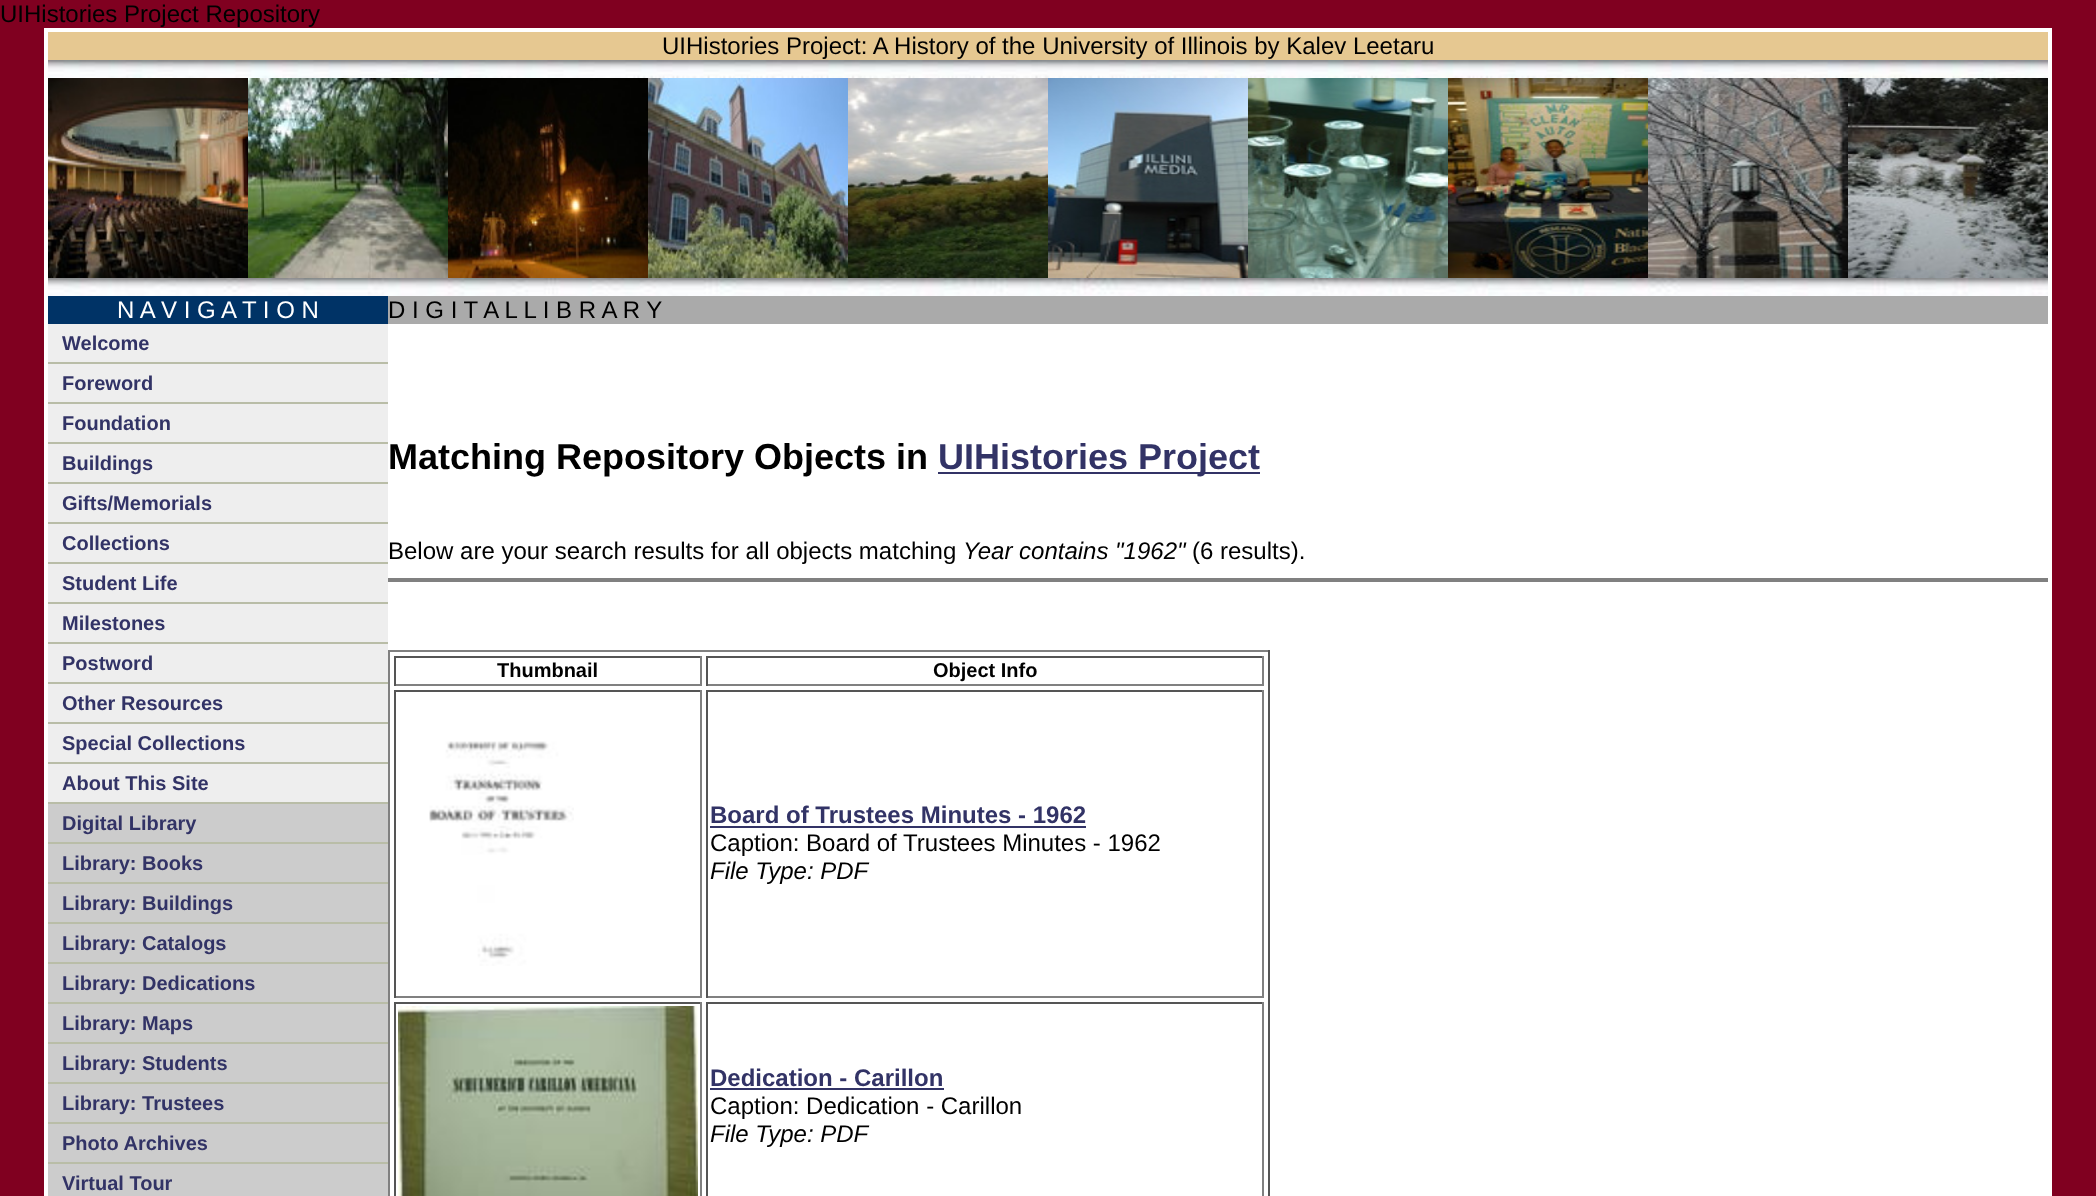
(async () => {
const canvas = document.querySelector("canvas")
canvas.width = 2096
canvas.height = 1196
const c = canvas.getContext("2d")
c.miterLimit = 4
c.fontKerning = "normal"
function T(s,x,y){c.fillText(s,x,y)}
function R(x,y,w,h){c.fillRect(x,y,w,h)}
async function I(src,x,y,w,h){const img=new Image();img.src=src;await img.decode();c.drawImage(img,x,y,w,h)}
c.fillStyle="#800020"
R(0,0,2096,1196)
c.font="24px Liberation Sans"
c.fillStyle="#000"
T("UIHistories Project Repository",0,22)
c.fillStyle="#fff"
R(44,28,2008,1168)
c.fillStyle="#e6c891"
R(48,32,2000,28)
c.fillStyle="#000"
T("UIHistories Project: A History of the University of Illinois by Kalev Leetaru",662,54)
await I("1.png",48,60,2000,18)
await I("2.png",48,78,200,200)
await I("3.png",248,78,200,200)
await I("4.png",448,78,200,200)
await I("5.png",648,78,200,200)
await I("6.png",848,78,200,200)
await I("7.png",1048,78,200,200)
await I("8.png",1248,78,200,200)
await I("9.png",1448,78,200,200)
await I("10.png",1648,78,200,200)
await I("11.png",1848,78,200,200)
await I("12.png",48,278,2000,18)
c.fillStyle="#036"
R(48,296,340,28)
c.fillStyle="#fff"
T("N A V I G A T I O N",117,318)
c.fillStyle="#aaa"
R(388,296,1660,28)
c.fillStyle="#000"
T("D I G I T A L L I B R A R Y",388,318)
c.fillStyle="#eee"
R(48,324,340,478)
c.fillStyle="#b9bda7"
R(48,362,340,2)
c.font="bold 20px Liberation Sans"
c.fillStyle="#323366"
T("Welcome",62,350)
c.fillStyle="#b9bda7"
R(48,402,340,2)
c.fillStyle="#323366"
T("Foreword",62,390)
c.fillStyle="#b9bda7"
R(48,442,340,2)
c.fillStyle="#323366"
T("Foundation",62,430)
c.fillStyle="#b9bda7"
R(48,482,340,2)
c.fillStyle="#323366"
T("Buildings",62,470)
c.fillStyle="#b9bda7"
R(48,522,340,2)
c.fillStyle="#323366"
T("Gifts/Memorials",62,510)
c.fillStyle="#b9bda7"
R(48,562,340,2)
c.fillStyle="#323366"
T("Collections",62,550)
c.fillStyle="#b9bda7"
R(48,602,340,2)
c.fillStyle="#323366"
T("Student Life",62,590)
c.fillStyle="#b9bda7"
R(48,642,340,2)
c.fillStyle="#323366"
T("Milestones",62,630)
c.fillStyle="#b9bda7"
R(48,682,340,2)
c.fillStyle="#323366"
T("Postword",62,670)
c.fillStyle="#b9bda7"
R(48,722,340,2)
c.fillStyle="#323366"
T("Other Resources",62,710)
c.fillStyle="#b9bda7"
R(48,762,340,2)
c.fillStyle="#323366"
T("Special Collections",62,750)
c.fillStyle="#b9bda7"
R(48,802,340,2)
c.fillStyle="#323366"
T("About This Site",62,790)
c.fillStyle="#ccc"
R(48,804,340,38)
c.fillStyle="#b9bda7"
R(48,842,340,2)
c.fillStyle="#323366"
T("Digital Library",62,830)
c.fillStyle="#ccc"
R(48,844,340,38)
c.fillStyle="#b9bda7"
R(48,882,340,2)
c.fillStyle="#323366"
T("Library: Books",62,870)
c.fillStyle="#ccc"
R(48,884,340,38)
c.fillStyle="#b9bda7"
R(48,922,340,2)
c.fillStyle="#323366"
T("Library: Buildings",62,910)
c.fillStyle="#ccc"
R(48,924,340,38)
c.fillStyle="#b9bda7"
R(48,962,340,2)
c.fillStyle="#323366"
T("Library: Catalogs",62,950)
c.fillStyle="#ccc"
R(48,964,340,38)
c.fillStyle="#b9bda7"
R(48,1002,340,2)
c.fillStyle="#323366"
T("Library: Dedications",62,990)
c.fillStyle="#ccc"
R(48,1004,340,38)
c.fillStyle="#b9bda7"
R(48,1042,340,2)
c.fillStyle="#323366"
T("Library: Maps",62,1030)
c.fillStyle="#ccc"
R(48,1044,340,38)
c.fillStyle="#b9bda7"
R(48,1082,340,2)
c.fillStyle="#323366"
T("Library: Students",62,1070)
c.fillStyle="#ccc"
R(48,1084,340,38)
c.fillStyle="#b9bda7"
R(48,1122,340,2)
c.fillStyle="#323366"
T("Library: Trustees",62,1110)
c.fillStyle="#ccc"
R(48,1124,340,38)
c.fillStyle="#b9bda7"
R(48,1162,340,2)
c.fillStyle="#323366"
T("Photo Archives",62,1150)
c.fillStyle="#ccc"
R(48,1164,340,32)
c.fillStyle="#323366"
T("Virtual Tour",62,1190)
c.font="bold 36px Liberation Sans"
c.fillStyle="#000"
T("Matching Repository Objects in",388,469)
c.fillStyle="#323366"
R(938,472,322,2)
T("UIHistories Project",938,469)
c.font="24px Liberation Sans"
c.fillStyle="#000"
T("Below are your search results for all objects matching",388,559)
c.font="italic 24px Liberation Sans"
T("Year contains \"1962\"",963,559)
c.font="24px Liberation Sans"
T("(6 results).",1192,559)
c.fillStyle="#808080"
R(388,578,1660,4)
R(388,650,882,2)
c.fillStyle="#555"
R(1268,650,2,546)
c.fillStyle="#808080"
R(388,650,2,546)
c.fillStyle="#555"
R(394,656,308,2)
c.fillStyle="#808080"
R(700,656,2,30)
R(394,684,308,2)
c.fillStyle="#555"
R(394,656,2,30)
c.font="bold 20px Liberation Sans"
c.fillStyle="#000"
T("Thumbnail",497,677)
c.fillStyle="#555"
R(706,656,558,2)
c.fillStyle="#808080"
R(1262,656,2,30)
R(706,684,558,2)
c.fillStyle="#555"
R(706,656,2,30)
c.fillStyle="#000"
T("Object Info",933,677)
c.fillStyle="#555"
R(394,690,308,2)
c.fillStyle="#808080"
R(700,690,2,308)
R(394,996,308,2)
c.fillStyle="#555"
R(394,690,2,308)
await I("13.png",429,741,145,225)
R(706,690,558,2)
c.fillStyle="#808080"
R(1262,690,2,308)
R(706,996,558,2)
c.fillStyle="#555"
R(706,690,2,308)
c.font="bold 24px Liberation Sans"
c.fillStyle="#323366"
T("Board of Trustees Minutes - 1962",710,823)
R(710,826,376,2)
c.font="24px Liberation Sans"
c.fillStyle="#000"
T("Caption: Board of Trustees Minutes - 1962",710,851)
c.font="italic 24px Liberation Sans"
T("File Type: PDF",710,879)
c.fillStyle="#555"
R(394,1002,308,2)
c.fillStyle="#808080"
R(700,1002,2,194)
c.fillStyle="#555"
R(394,1002,2,194)
await I("14.png",398,1006,300,190)
R(706,1002,558,2)
c.fillStyle="#808080"
R(1262,1002,2,194)
c.fillStyle="#555"
R(706,1002,2,194)
c.font="bold 24px Liberation Sans"
c.fillStyle="#323366"
T("Dedication - Carillon",710,1086)
R(710,1088,234,2)
c.font="24px Liberation Sans"
c.fillStyle="#000"
T("Caption: Dedication - Carillon",710,1114)
c.font="italic 24px Liberation Sans"
T("File Type: PDF",710,1142)
})()
